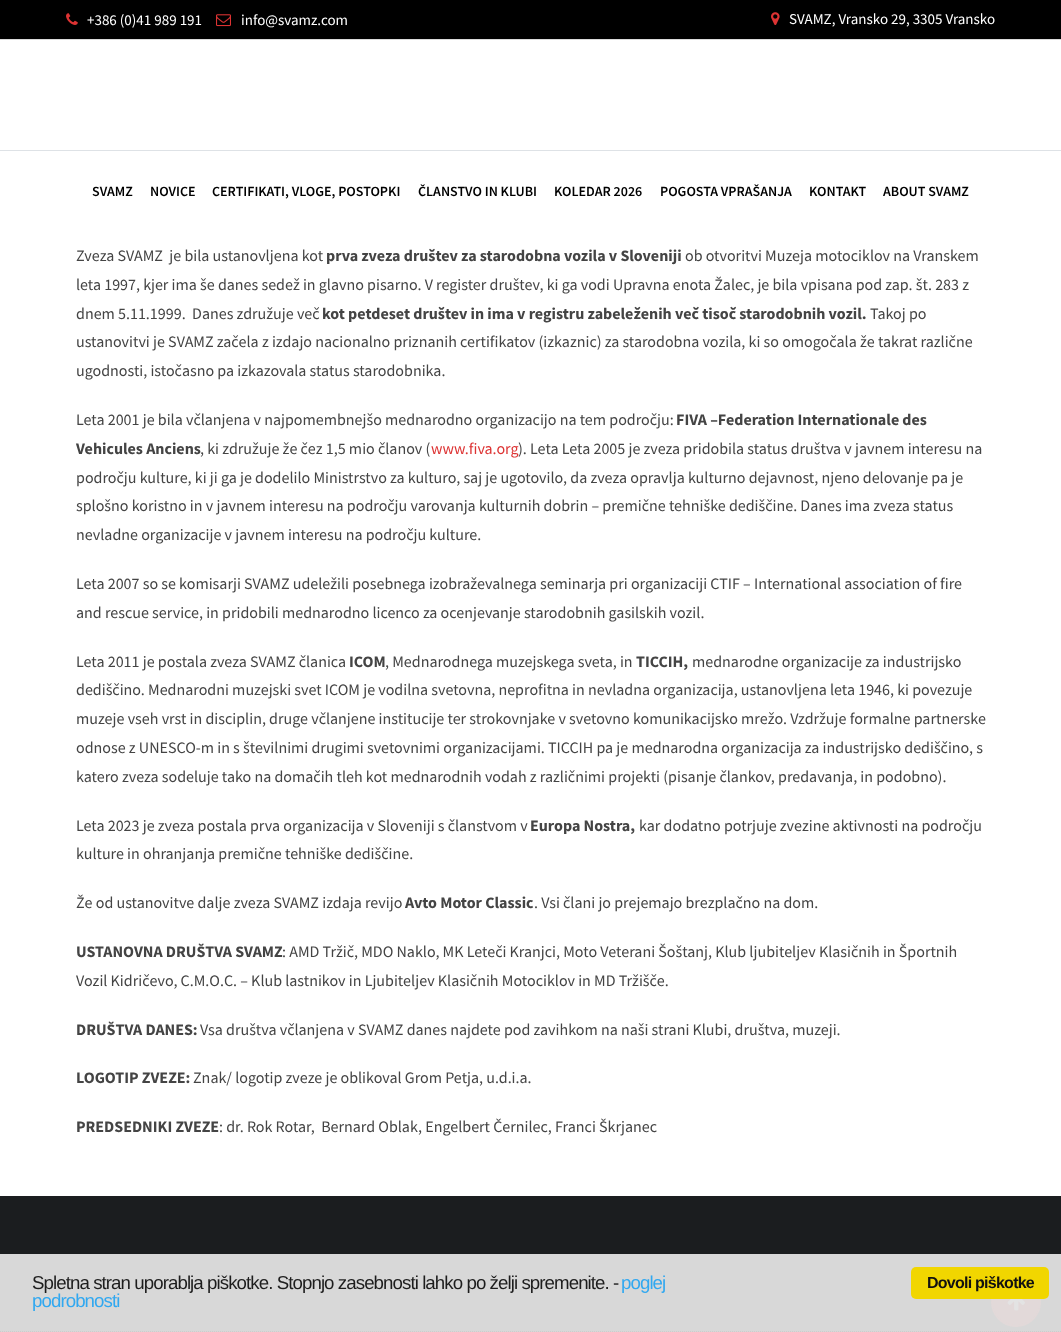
(async () => {
const canvas = document.querySelector("canvas")
canvas.width = 1061
canvas.height = 1332
const c = canvas.getContext("2d")
c.miterLimit = 4
c.fontKerning = "normal"
function T(s,x,y){c.fillText(s,x,y)}
function R(x,y,w,h){c.fillRect(x,y,w,h)}
function Q(x,y,w,h,r){c.beginPath();c.roundRect(x,y,w,h,r);c.fill()}
async function I(src,x,y,w,h){const img=new Image();img.src=src;await img.decode();c.drawImage(img,x,y,w,h)}
let path
c.fillStyle="#fff"
R(0,0,1061,1332)
c.fillStyle="#000"
R(0,0,1061,39)
c.fillStyle="#dadada"
R(0,39,1061,1)
await I("1.png",66,13,12,12)
c.font="15px Source Sans Pro"
c.fillStyle="#fff"
T("+386 (0)41 989 191",87,25)
await I("2.png",216,14,15,13)
T("info@svamz.com",241,25)
await I("3.png",771,12,9,13)
T("SVAMZ, Vransko 29, 3305 Vransko",789,24)
c.fillStyle="#dee2e6"
R(0,150,1061,1)
c.font="600 14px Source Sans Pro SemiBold"
c.fillStyle="#000"
T("SVAMZ",92,196)
T("NOVICE",150,196)
T("CERTIFIKATI, VLOGE, POSTOPKI",212,196)
T("ČLANSTVO IN KLUBI",418,196)
T("KOLEDAR 2026",554,196)
T("POGOSTA VPRAŠANJA",660,196)
T("KONTAKT",809,196)
T("ABOUT SVAMZ",883,196)
c.font="16px Source Sans Pro"
c.fillStyle="#444"
T("Zveza SVAMZ  je bila ustanovljena kot",76,261)
c.font="bold 16px Source Sans Pro"
T("prva zveza društev za starodobna vozila v Sloveniji",326,261)
c.font="16px Source Sans Pro"
T("ob otvoritvi Muzeja motociklov na Vranskem",685,261)
T("leta 1997, kjer ima še danes sedež in glavno pisarno. V register društev, ki ga vodi Upravna enota Žalec, je bila vpisana pod zap. št. 283 z",76,290)
T("dnem 5.11.1999.  Danes združuje več",76,319)
c.font="bold 16px Source Sans Pro"
T("kot petdeset društev in ima v registru zabeleženih več tisoč starodobnih vozil.",322,319)
c.font="16px Source Sans Pro"
T("Takoj po",870,319)
T("ustanovitvi je SVAMZ začela z izdajo nacionalno priznanih certifikatov (izkaznic) za starodobna vozila, ki so omogočala že takrat različne",76,347)
T("ugodnosti, istočasno pa izkazovala status starodobnika.",76,376)
T("Leta 2001 je bila včlanjena v najpomembnejšo mednarodno organizacijo na tem področju:",76,425)
c.font="bold 16px Source Sans Pro"
T("FIVA –Federation Internationale des",676,425)
T("Vehicules Anciens",76,454)
c.font="16px Source Sans Pro"
T(", ki združuje že čez 1,5 mio članov (",200,454)
c.fillStyle="#d33"
T("www.fiva.org",431,454)
c.fillStyle="#444"
T("). Leta Leta 2005 je zveza pridobila status društva v javnem interesu na",518,454)
T("področju kulture, ki ji ga je dodelilo Ministrstvo za kulturo, saj je ugotovilo, da zveza opravlja kulturno dejavnost, njeno delovanje pa je",76,483)
T("splošno koristno in v javnem interesu na področju varovanja kulturnih dobrin – premične tehniške dediščine. Danes ima zveza status",76,511)
T("nevladne organizacije v javnem interesu na področju kulture.",76,540)
T("Leta 2007 so se komisarji SVAMZ udeležili posebnega izobraževalnega seminarja pri organizaciji CTIF – International association of fire",76,589)
T("and rescue service, in pridobili mednarodno licenco za ocenjevanje starodobnih gasilskih vozil.",76,618)
T("Leta 2011 je postala zveza SVAMZ članica",76,667)
c.font="bold 16px Source Sans Pro"
T("ICOM",349,667)
c.font="16px Source Sans Pro"
T(", Mednarodnega muzejskega sveta, in",385,667)
c.font="bold 16px Source Sans Pro"
T("TICCIH,",636,667)
c.font="16px Source Sans Pro"
T("mednarodne organizacije za industrijsko",692,667)
T("dediščino. Mednarodni muzejski svet ICOM je vodilna svetovna, neprofitna in nevladna organizacija, ustanovljena leta 1946, ki povezuje",76,695)
T("muzeje vseh vrst in disciplin, druge včlanjene institucije ter strokovnjake v svetovno komunikacijsko mrežo. Vzdržuje formalne partnerske",76,724)
T("odnose z UNESCO-m in s številnimi drugimi svetovnimi organizacijami. TICCIH pa je mednarodna organizacija za industrijsko dediščino, s",76,753)
T("katero zveza sodeluje tako na domačih tleh kot mednarodnih vodah z različnimi projekti (pisanje člankov, predavanja, in podobno).",76,782)
T("Leta 2023 je zveza postala prva organizacija v Sloveniji s članstvom v",76,831)
c.font="bold 16px Source Sans Pro"
T("Europa Nostra,",530,831)
c.font="16px Source Sans Pro"
T("kar dodatno potrjuje zvezine aktivnosti na področju",639,831)
T("kulture in ohranjanja premične tehniške dediščine.",76,859)
T("Že od ustanovitve dalje zveza SVAMZ izdaja revijo",76,908)
c.font="bold 16px Source Sans Pro"
T("Avto Motor Classic",405,908)
c.font="16px Source Sans Pro"
T(". Vsi člani jo prejemajo brezplačno na dom.",534,908)
c.font="bold 16px Source Sans Pro"
T("USTANOVNA DRUŠTVA SVAMZ",76,957)
c.font="16px Source Sans Pro"
T(": AMD Tržič, MDO Naklo, MK Leteči Kranjci, Moto Veterani Šoštanj, Klub ljubiteljev Klasičnih in Športnih",282,957)
T("Vozil Kidričevo, C.M.O.C. – Klub lastnikov in Ljubiteljev Klasičnih Motociklov in MD Tržišče.",76,986)
c.font="bold 16px Source Sans Pro"
T("DRUŠTVA DANES:",76,1035)
c.font="16px Source Sans Pro"
T("Vsa društva včlanjena v SVAMZ danes najdete pod zavihkom na naši strani Klubi, društva, muzeji.",200,1035)
c.font="bold 16px Source Sans Pro"
T("LOGOTIP ZVEZE:",76,1083)
c.font="16px Source Sans Pro"
T("Znak/ logotip zveze je oblikoval Grom Petja, u.d.i.a.",193,1083)
c.font="bold 16px Source Sans Pro"
T("PREDSEDNIKI ZVEZE",76,1132)
c.font="16px Source Sans Pro"
T(": dr. Rok Rotar,  Bernard Oblak, Engelbert Černilec, Franci Škrjanec",219,1132)
c.fillStyle="#1b1d1f"
R(0,1196,1061,58)
c.fillStyle="#d8d8d8"
R(0,1254,1061,78)
path = new Path2D("M0 1331.5h1061")
c.strokeStyle="#ccc"
c.setLineDash([1,1])
c.stroke(path)
c.letterSpacing="-0.93px"
c.font="18.7px Liberation Sans"
c.fillStyle="#1d1d1d"
T("Spletna stran uporablja piškotke. Stopnjo zasebnosti lahko po želji spremenite. -",32,1289)
c.fillStyle="#31a8f0"
T("poglej",621,1289)
T("podrobnosti",32,1307)
c.fillStyle="#e2d9d9"
c.beginPath()
c.arc(1016,1302,24,0,7)
c.fill()
c.strokeStyle="#e2d9d9"
c.lineWidth=2
c.setLineDash([])
c.stroke()
c.fillStyle="#f1d600"
Q(911,1267,138,32,5)
c.letterSpacing="-0.75px"
c.font="bold 16px Liberation Sans"
c.fillStyle="#111"
T("Dovoli piškotke",927,1288)
await I("4.png",1007,1299,18,12)
})()
